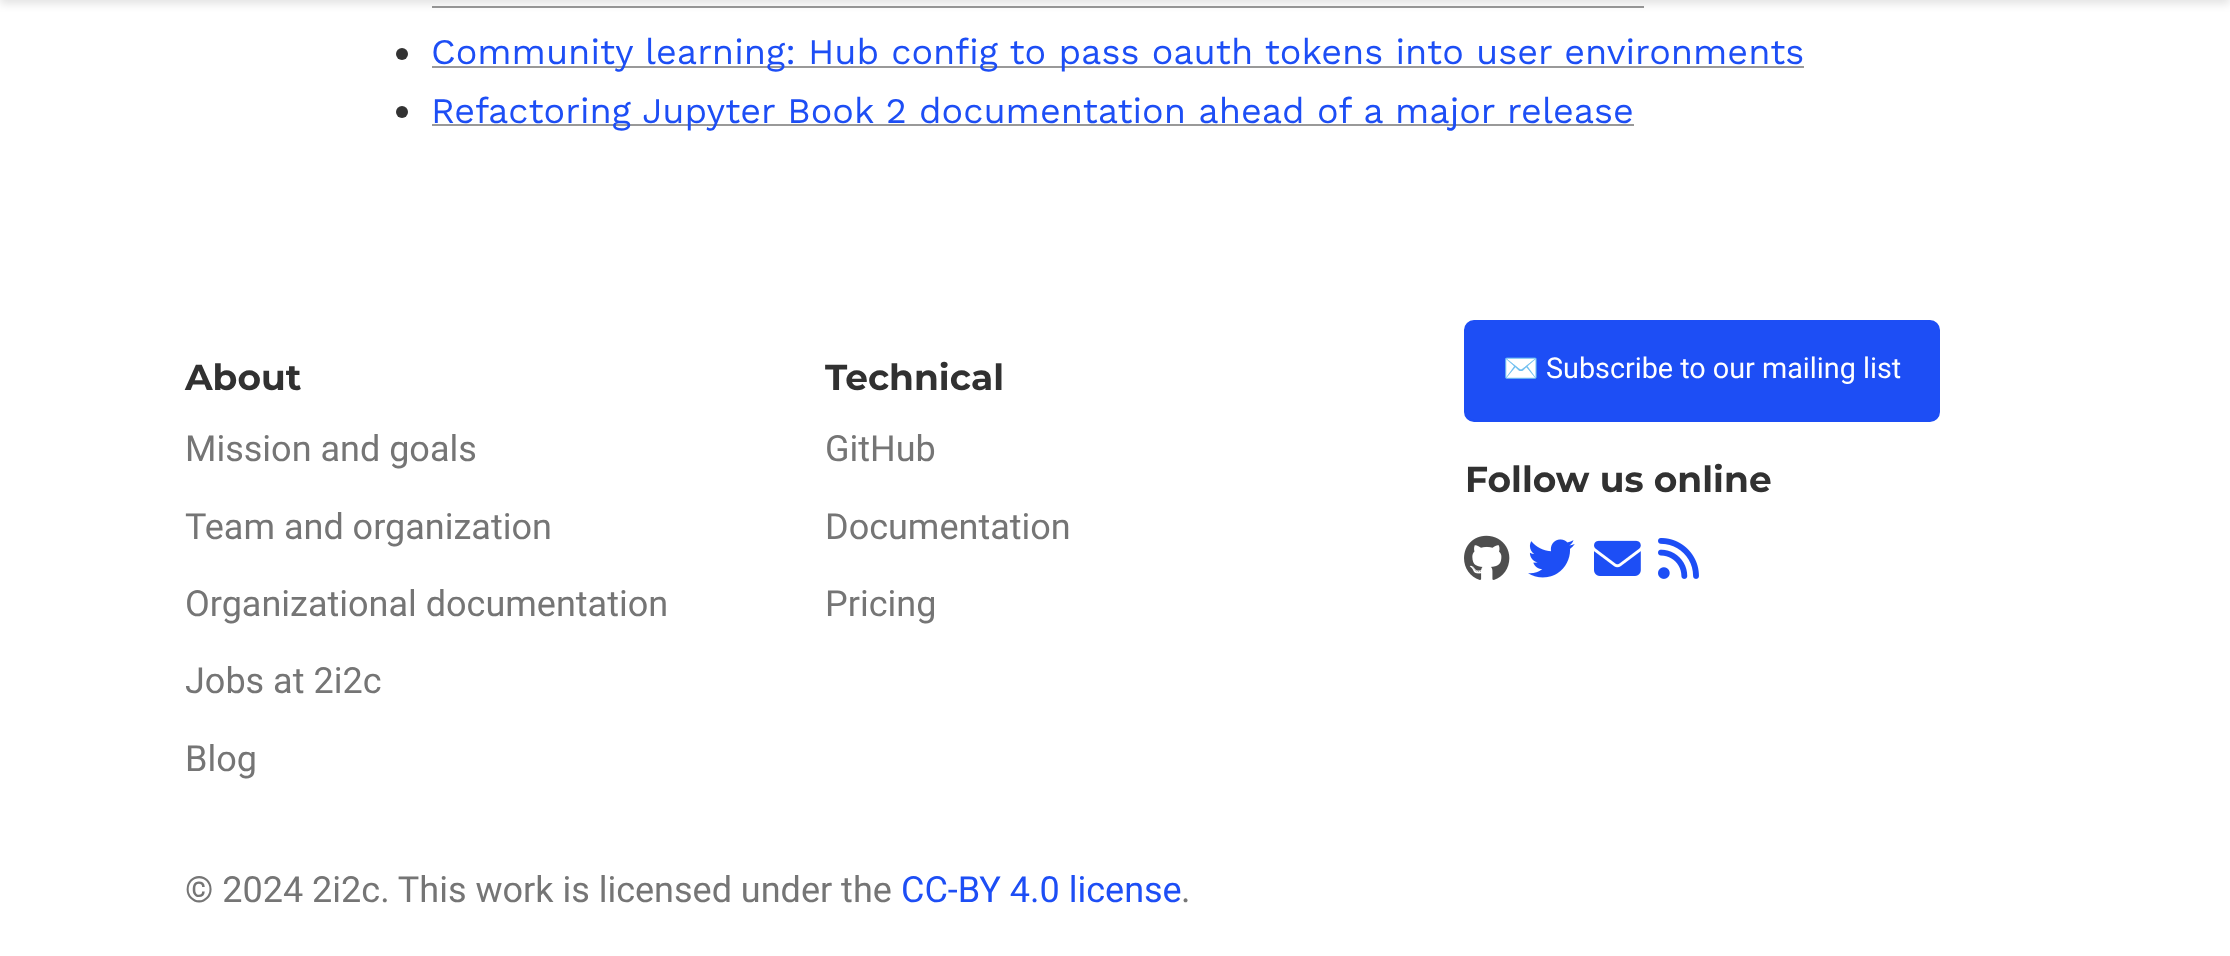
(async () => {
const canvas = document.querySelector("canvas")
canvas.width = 2230
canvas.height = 956
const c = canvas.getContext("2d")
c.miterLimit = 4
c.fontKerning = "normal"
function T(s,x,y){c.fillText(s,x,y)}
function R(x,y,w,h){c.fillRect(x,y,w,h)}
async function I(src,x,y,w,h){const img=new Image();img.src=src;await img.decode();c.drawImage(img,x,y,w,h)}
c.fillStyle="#fff"
R(0,0,2230,956)
c.fillStyle="#999"
R(432,6,1212,2)
c.fillStyle="#0000001c"
c.filter="blur(4.5px)"
c.beginPath()
c.rect(0,-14,2230,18)
c.fill()
c.filter="none"
c.fillStyle="#333"
c.beginPath()
c.arc(402,54,6,0,7)
c.fill()
c.fillStyle="#999"
R(432,66,1372,2)
c.font="36px Work Sans"
c.fillStyle="#1d4ef5"
T("Community learning: Hub config to pass oauth tokens into user environments",431,64)
c.fillStyle="#333"
c.beginPath()
c.arc(402,112,6,0,7)
c.fill()
c.fillStyle="#999"
R(432,124,1202,2)
c.fillStyle="#1d4ef5"
T("Refactoring Jupyter Book 2 documentation ahead of a major release",431,123)
c.font="bold 36px Montserrat"
c.fillStyle="#313131"
T("About",185,390)
c.font="36px Roboto"
c.fillStyle="#757575"
T("Mission and goals",185,461)
T("Team and organization",185,539)
T("Organizational documentation",185,616)
T("Jobs at 2i2c",185,693)
T("Blog",185,771)
c.font="bold 36px Montserrat"
c.fillStyle="#313131"
T("Technical",825,390)
c.font="36px Roboto"
c.fillStyle="#757575"
T("GitHub",825,461)
T("Documentation",825,539)
T("Pricing",825,616)
c.fillStyle="#1d4ef5"
c.beginPath()
c.roundRect(1465,321,474,100,9)
c.fill()
c.strokeStyle="#1d4ef5"
c.lineWidth=2
c.stroke()
c.font="28.75px Noto Color Emoji"
c.fillStyle="#fff"
T("✉️",1503,378)
c.font="28.75px Roboto"
T("Subscribe to our mailing list",1546,378)
c.font="bold 36px Montserrat"
c.fillStyle="#313131"
T("Follow us online",1465,492)
await I("1.png",1464,535,46,45)
await I("2.png",1528,539,47,39)
await I("3.png",1594,540,47,36)
await I("4.png",1658,538,41,41)
c.font="36px Roboto"
c.fillStyle="#757575"
T("© 2024 2i2c. This work is licensed under the",185,902)
c.fillStyle="#1d4ef5"
T("CC-BY 4.0 license",901,902)
c.fillStyle="#757575"
T(".",1181,902)
})()
